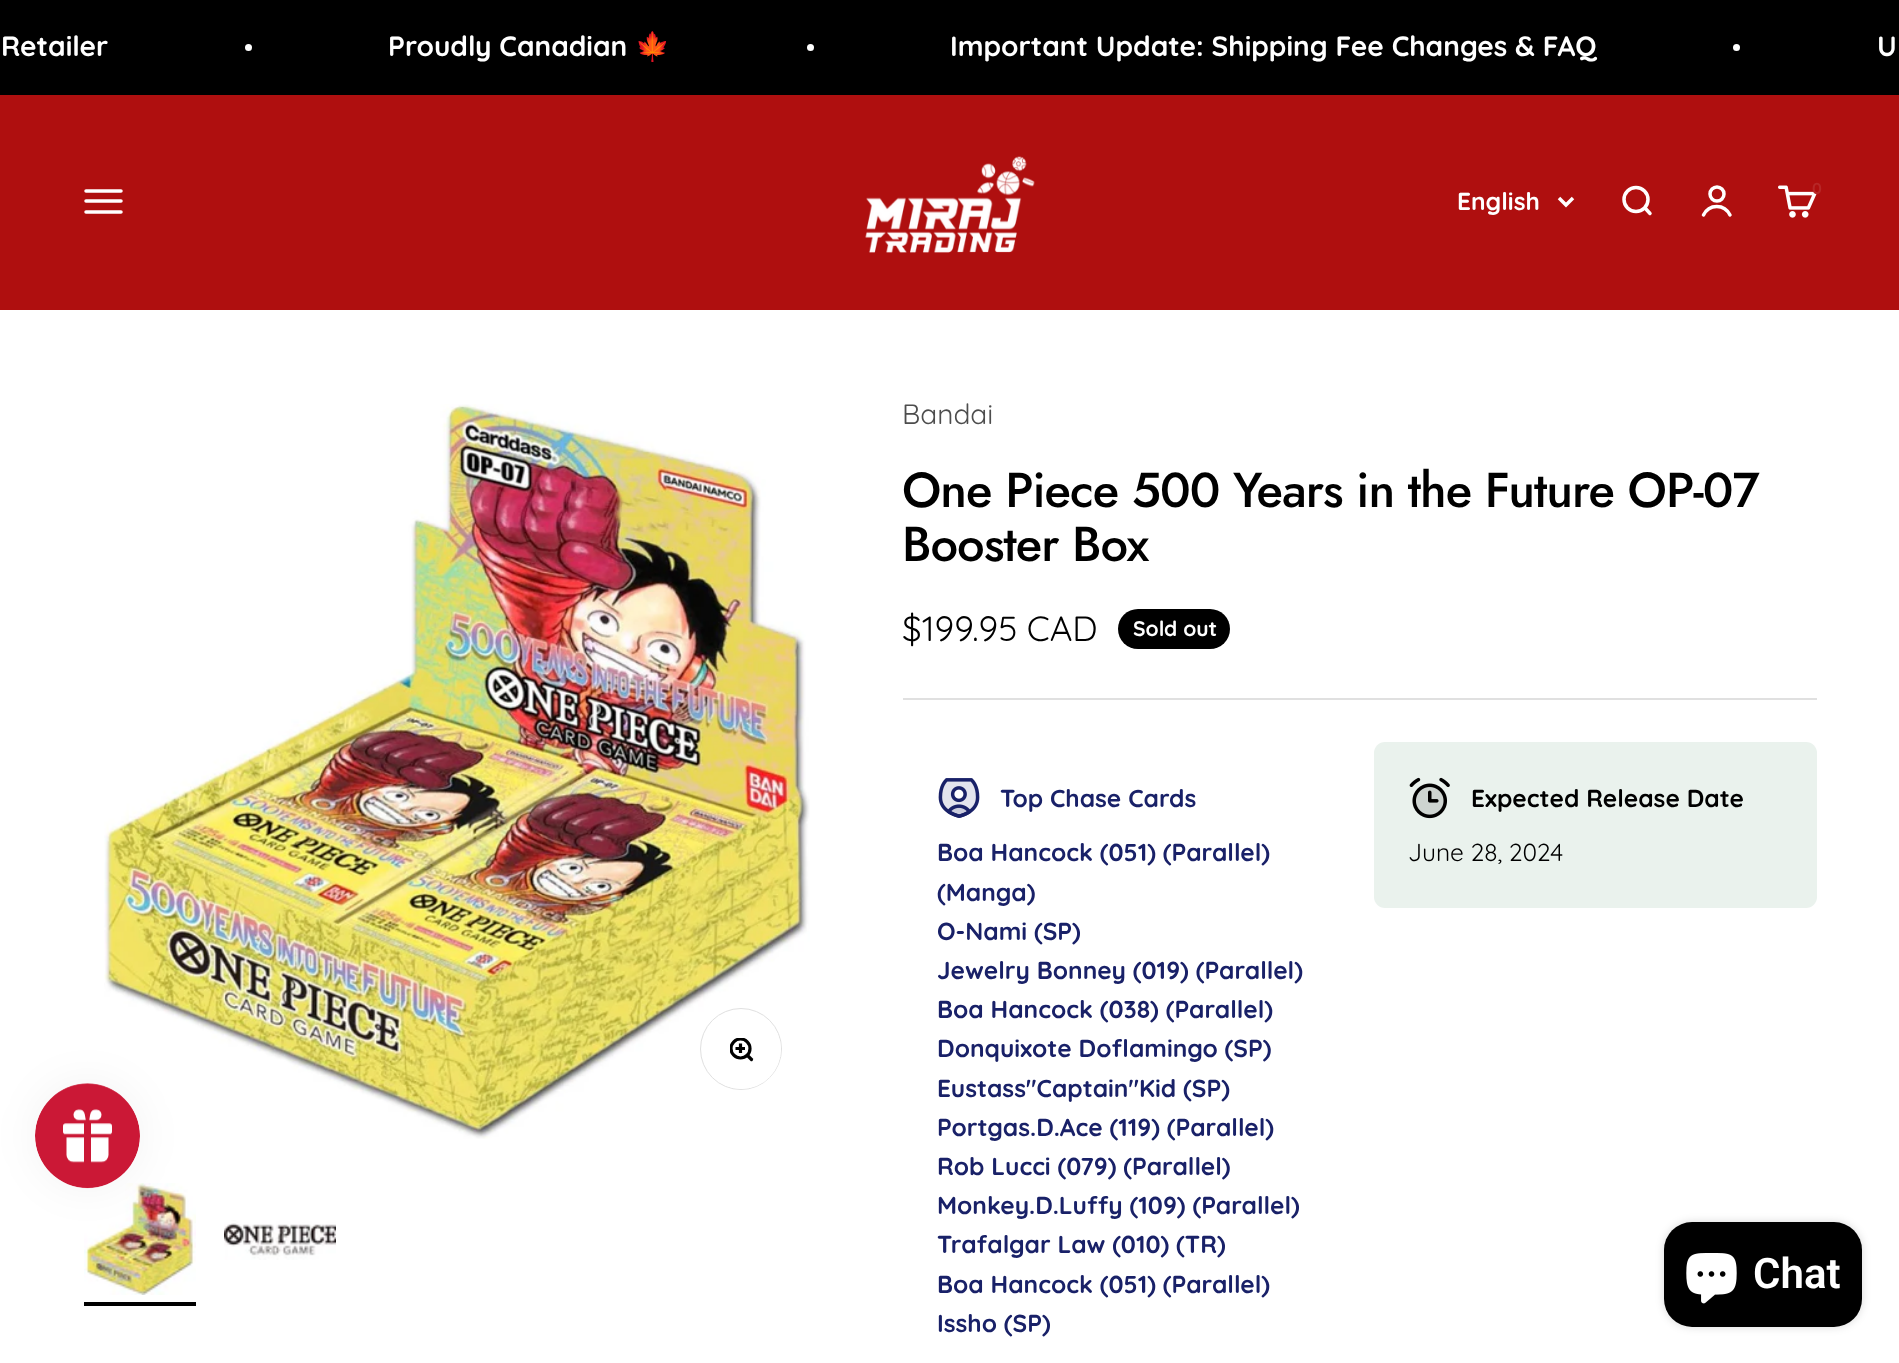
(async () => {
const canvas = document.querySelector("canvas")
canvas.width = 1899
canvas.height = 1363
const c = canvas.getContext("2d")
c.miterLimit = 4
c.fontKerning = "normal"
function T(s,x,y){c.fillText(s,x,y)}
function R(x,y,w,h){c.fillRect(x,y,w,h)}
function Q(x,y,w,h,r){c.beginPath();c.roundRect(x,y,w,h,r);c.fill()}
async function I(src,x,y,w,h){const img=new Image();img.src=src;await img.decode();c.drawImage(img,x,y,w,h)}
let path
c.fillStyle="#fff"
R(0,0,1899,1363)
c.fillStyle="#000"
R(0,0,1899,95)
c.font="bold 28px Quicksand"
c.fillStyle="#fff"
T("Retailer",1,56)
c.beginPath()
c.arc(248.5,47.5,3.5,0,7)
c.fill()
T("Proudly Canadian",388,56)
c.font="bold 28px Noto Color Emoji"
T("🍁",635,56)
c.beginPath()
c.arc(810.5,47.5,3.5,0,7)
c.fill()
c.font="bold 28px Quicksand"
T("Important Update: Shipping Fee Changes & FAQ",950,56)
c.beginPath()
c.arc(1736.5,47.5,3.5,0,7)
c.fill()
T("U",1877,56)
c.fillStyle="#af0f0f"
R(0,95,1899,215)
path = new Path2D("M86 191h35m-35 10h35m-35 11h35")
c.strokeStyle="#fff"
c.lineWidth=3.5
c.lineCap="round"
c.stroke(path)
await I("1.png",865,156,170,97)
c.font="bold 24.5px Quicksand"
c.fillStyle="#fff"
T("English",1457,210)
path = new Path2D("M1559 198l7 7l7-7")
c.lineCap="butt"
c.stroke(path)
c.beginPath()
c.arc(1636,199.5,12,0,7)
c.stroke()
path = new Path2D("M1645 208l5 5.5")
c.lineCap="round"
c.lineJoin="round"
c.stroke(path)
c.beginPath()
c.arc(1717,194,7,0,7)
c.stroke()
path = new Path2D("M1703.5 215c5.5-11.5 21-11.5 26.5 0")
c.lineJoin="miter"
c.stroke(path)
await I("2.png",1778,185,39,33)
c.font="bold 16px Quicksand"
c.fillStyle="#b72727"
T("0",1812,194)
await I("4.png",104,404,706,735)
await I("5.png",84,1183,112,112)
c.fillStyle="#0000000d"
c.filter="blur(22px)"
c.beginPath()
c.roundRect(35,1083,105,105,52.5)
c.fill()
c.filter="none"
await I("3.png",35,1083,105,106)
c.beginPath()
c.arc(741,1049,40.5,0,7)
c.strokeStyle="#e0e0e0"
c.lineWidth=1
c.stroke()
c.fillStyle="#fff"
c.beginPath()
c.arc(741.5,1049.5,39.5,0,7)
c.fill()
c.save()
c.beginPath()
c.rect(730,1038,23,23)
c.clip()
c.beginPath()
c.arc(740.5,1048.5,9.5,0,7)
c.strokeStyle="#000"
c.lineWidth=3.2
c.stroke()
c.restore()
path = new Path2D("M747.5 1055.5l4 4")
c.strokeStyle="#000"
c.lineWidth=3.2
c.lineJoin="round"
c.stroke(path)
path = new Path2D("M740.5 1043.5v9.5m-5-4.5h9.5")
c.lineCap="butt"
c.lineJoin="miter"
c.stroke(path)
c.fillStyle="#000"
R(84,1302,112,4)
await I("6.png",224,1220,112,40)
c.font="28px Quicksand"
c.fillStyle="#4d4d4d"
T("Bandai",902,424)
c.letterSpacing="-1px"
c.font="500 49px Jost"
c.fillStyle="#000"
T("One Piece 500 Years in the Future OP-07",902,507)
T("Booster Box",902,561)
c.letterSpacing="0px"
c.font="35px Quicksand"
T("$199.95 CAD",902,641)
Q(1118,609,112,40,20)
c.font="bold 21px Quicksand"
c.fillStyle="#fff"
T("Sold out",1133,636)
c.fillStyle="#e0e0e0"
R(903,698,914,2)
await I("7.png",938,778,42,40)
c.font="bold 24.5px Quicksand"
c.fillStyle="#192168"
T("Top Chase Cards",1000,807)
T("Boa Hancock (051) (Parallel)",937,861)
T("(Manga)",937,901)
T("O-Nami (SP)",937,940)
T("Jewelry Bonney (019) (Parallel)",937,979)
T("Boa Hancock (038) (Parallel)",937,1018)
T("Donquixote Doflamingo (SP)",937,1057)
T("Eustass\"Captain\"Kid (SP)",937,1097)
T("Portgas.D.Ace (119) (Parallel)",937,1136)
T("Rob Lucci (079) (Parallel)",937,1175)
T("Monkey.D.Luffy (109) (Parallel)",937,1214)
T("Trafalgar Law (010) (TR)",937,1253)
T("Boa Hancock (051) (Parallel)",937,1293)
T("Issho (SP)",937,1332)
c.fillStyle="#eaf2ed"
Q(1374,742,443,166,11)
await I("8.png",1409,777,41,42)
c.fillStyle="#000"
T("Expected Release Date",1471,807)
c.font="24.5px Quicksand"
T("June 28, 2024",1408,861)
c.fillStyle="#00000026"
c.filter="blur(4.5px)"
c.beginPath()
c.roundRect(1664,1222,198,105,28)
c.fill()
c.filter="none"
c.fillStyle="#000"
Q(1664,1222,198,105,28)
await I("9.png",1686,1253,51,51)
c.font="600 42px Roboto"
c.fillStyle="#fff"
T("Chat",1753,1288)
})()
